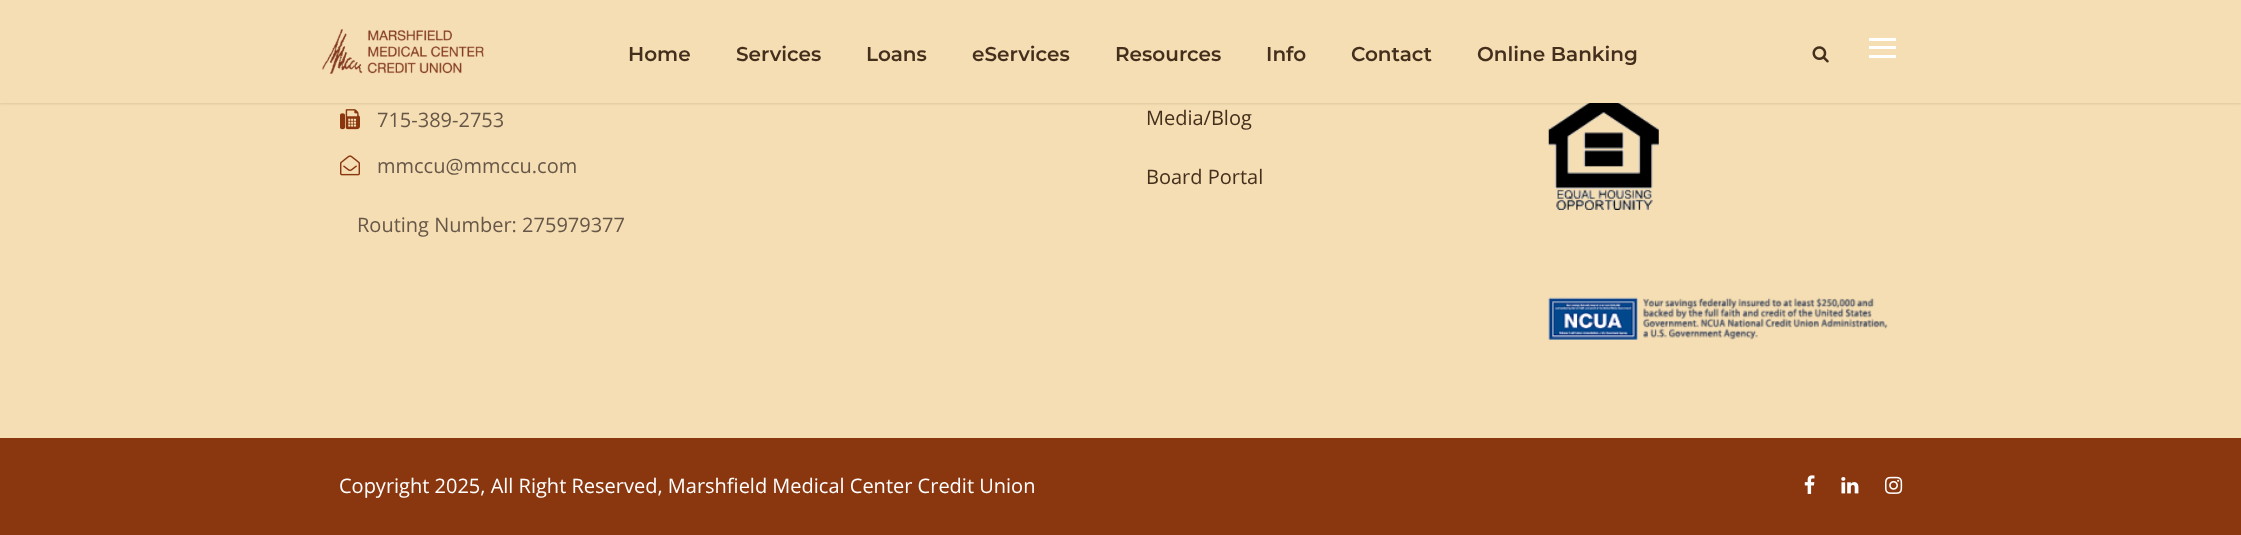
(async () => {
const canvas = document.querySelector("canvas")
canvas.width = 2241
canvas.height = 535
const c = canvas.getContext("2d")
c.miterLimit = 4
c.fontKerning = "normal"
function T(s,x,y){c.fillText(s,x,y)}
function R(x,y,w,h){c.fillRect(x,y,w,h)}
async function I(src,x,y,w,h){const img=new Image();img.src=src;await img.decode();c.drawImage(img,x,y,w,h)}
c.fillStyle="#f5deb3"
R(0,0,2241,535)
await I("5.png",1548,103,111,107)
c.fillStyle="#0000001a"
c.filter="blur(1px)"
c.beginPath()
c.rect(0,1,2241,103)
c.fill()
c.filter="none"
c.fillStyle="#f5deb3"
R(0,0,2241,103)
await I("1.png",322,29,162,45)
c.font="600 20px Montserrat"
c.fillStyle="#442f1d"
T("Home",628,61)
T("Services",736,61)
T("Loans",866,61)
T("eServices",972,61)
T("Resources",1115,61)
T("Info",1266,61)
T("Contact",1351,61)
T("Online Banking",1477,61)
await I("2.png",1812,46,17,17)
c.fillStyle="#fff"
R(1869,38,27,3)
R(1869,46,27,3)
R(1869,55,27,3)
await I("3.png",340,109,20,21)
c.font="20px Open Sans"
c.fillStyle="#675748"
T("715-389-2753",377,127)
await I("4.png",340,155,20,21)
T("mmccu@mmccu.com",377,173)
T("Routing Number: 275979377",357,232)
c.fillStyle="#442f1d"
T("Media/Blog",1146,125)
T("Board Portal",1146,184)
await I("6.png",1548,297,340,43)
c.fillStyle="#8a360f"
R(0,438,2241,97)
c.fillStyle="#fff"
T("Copyright 2025, All Right Reserved, Marshfield Medical Center Credit Union",339,493)
await I("7.png",1804,475,11,19)
await I("8.png",1841,477,18,17)
await I("9.png",1885,476,18,18)
})()
